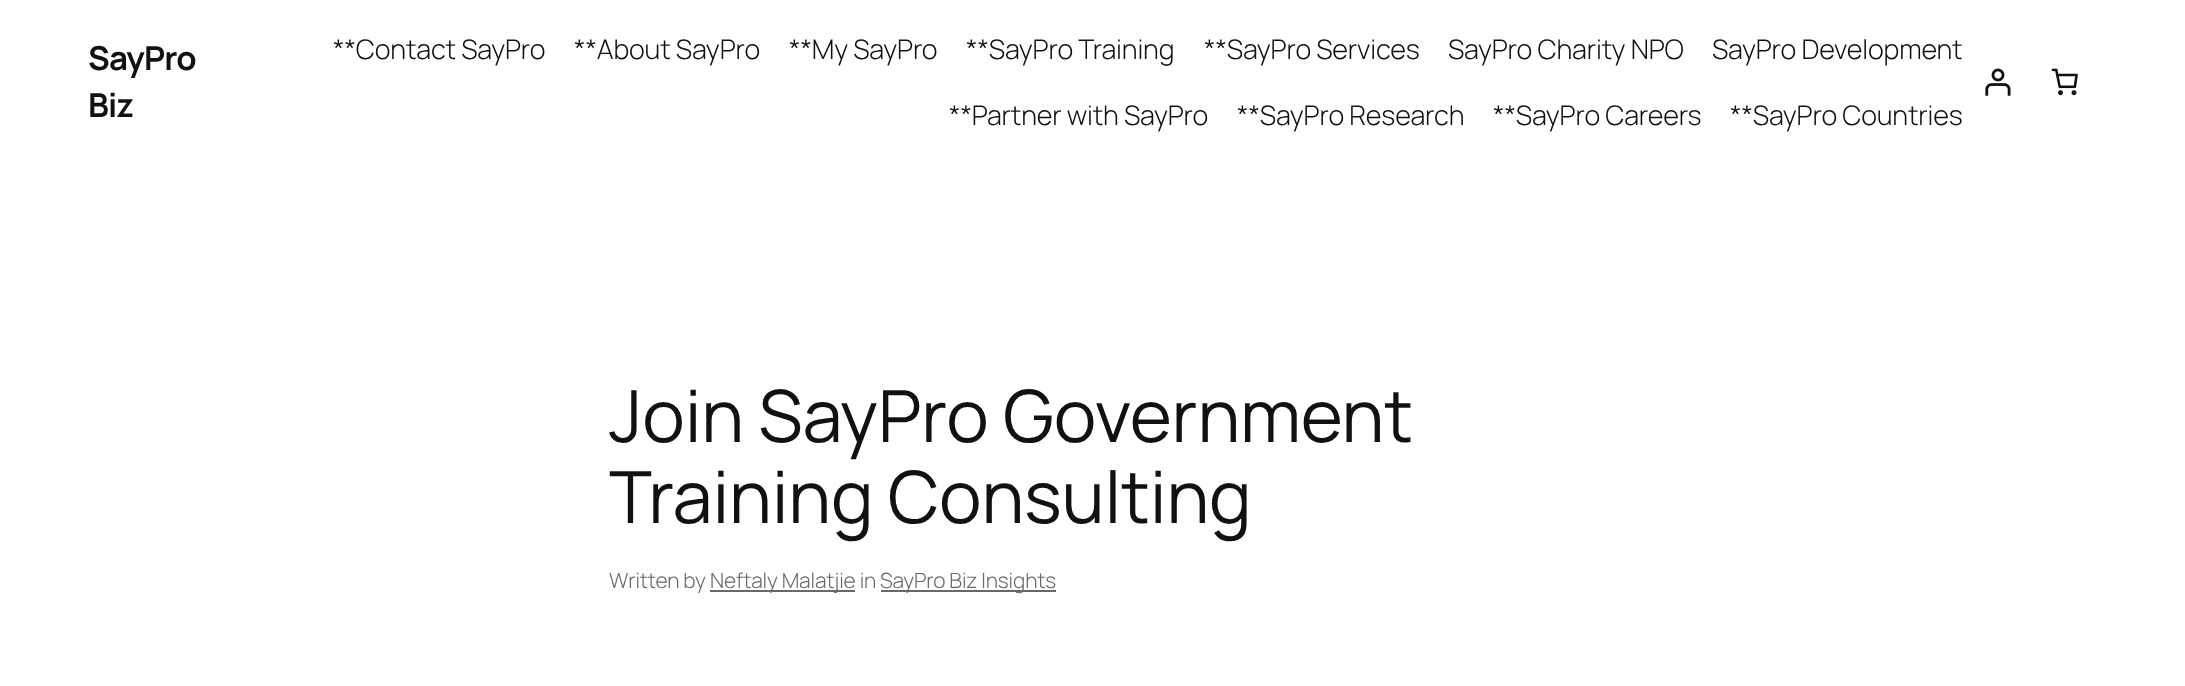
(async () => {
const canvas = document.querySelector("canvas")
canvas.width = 2185
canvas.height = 686
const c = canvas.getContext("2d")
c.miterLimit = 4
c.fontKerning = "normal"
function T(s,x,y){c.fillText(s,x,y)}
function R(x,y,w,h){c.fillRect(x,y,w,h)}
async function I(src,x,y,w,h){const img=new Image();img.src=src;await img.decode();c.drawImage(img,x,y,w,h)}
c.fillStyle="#fff"
R(0,0,2185,686)
c.letterSpacing="-0.75px"
c.font="bold 33px Manrope"
c.fillStyle="#111"
T("SayPro",88,70)
T("Biz",88,117)
c.letterSpacing="-0.15px"
c.font="300 27px Manrope"
T("**Contact SayPro",333,59)
T("**About SayPro",574,59)
T("**My SayPro",789,59)
T("**SayPro Training",966,59)
T("**SayPro Services",1204,59)
T("SayPro Charity NPO",1448,59)
T("SayPro Development",1712,59)
T("**Partner with SayPro",949,125)
T("**SayPro Research",1237,125)
T("**SayPro Careers",1493,125)
T("**SayPro Countries",1730,125)
await I("1.png",1985,68,26,28)
await I("2.png",2051,68,27,28)
c.font="72px Manrope"
T("Join SayPro Government",609,442)
T("Training Consulting",609,523)
c.font="300 21px Manrope"
c.fillStyle="#686868"
T("Written by",609,588)
R(710,590,145,2)
T("Neftaly Malatjie in",710,588)
R(881,590,175,2)
T("SayPro Biz Insights",880,588)
})()
